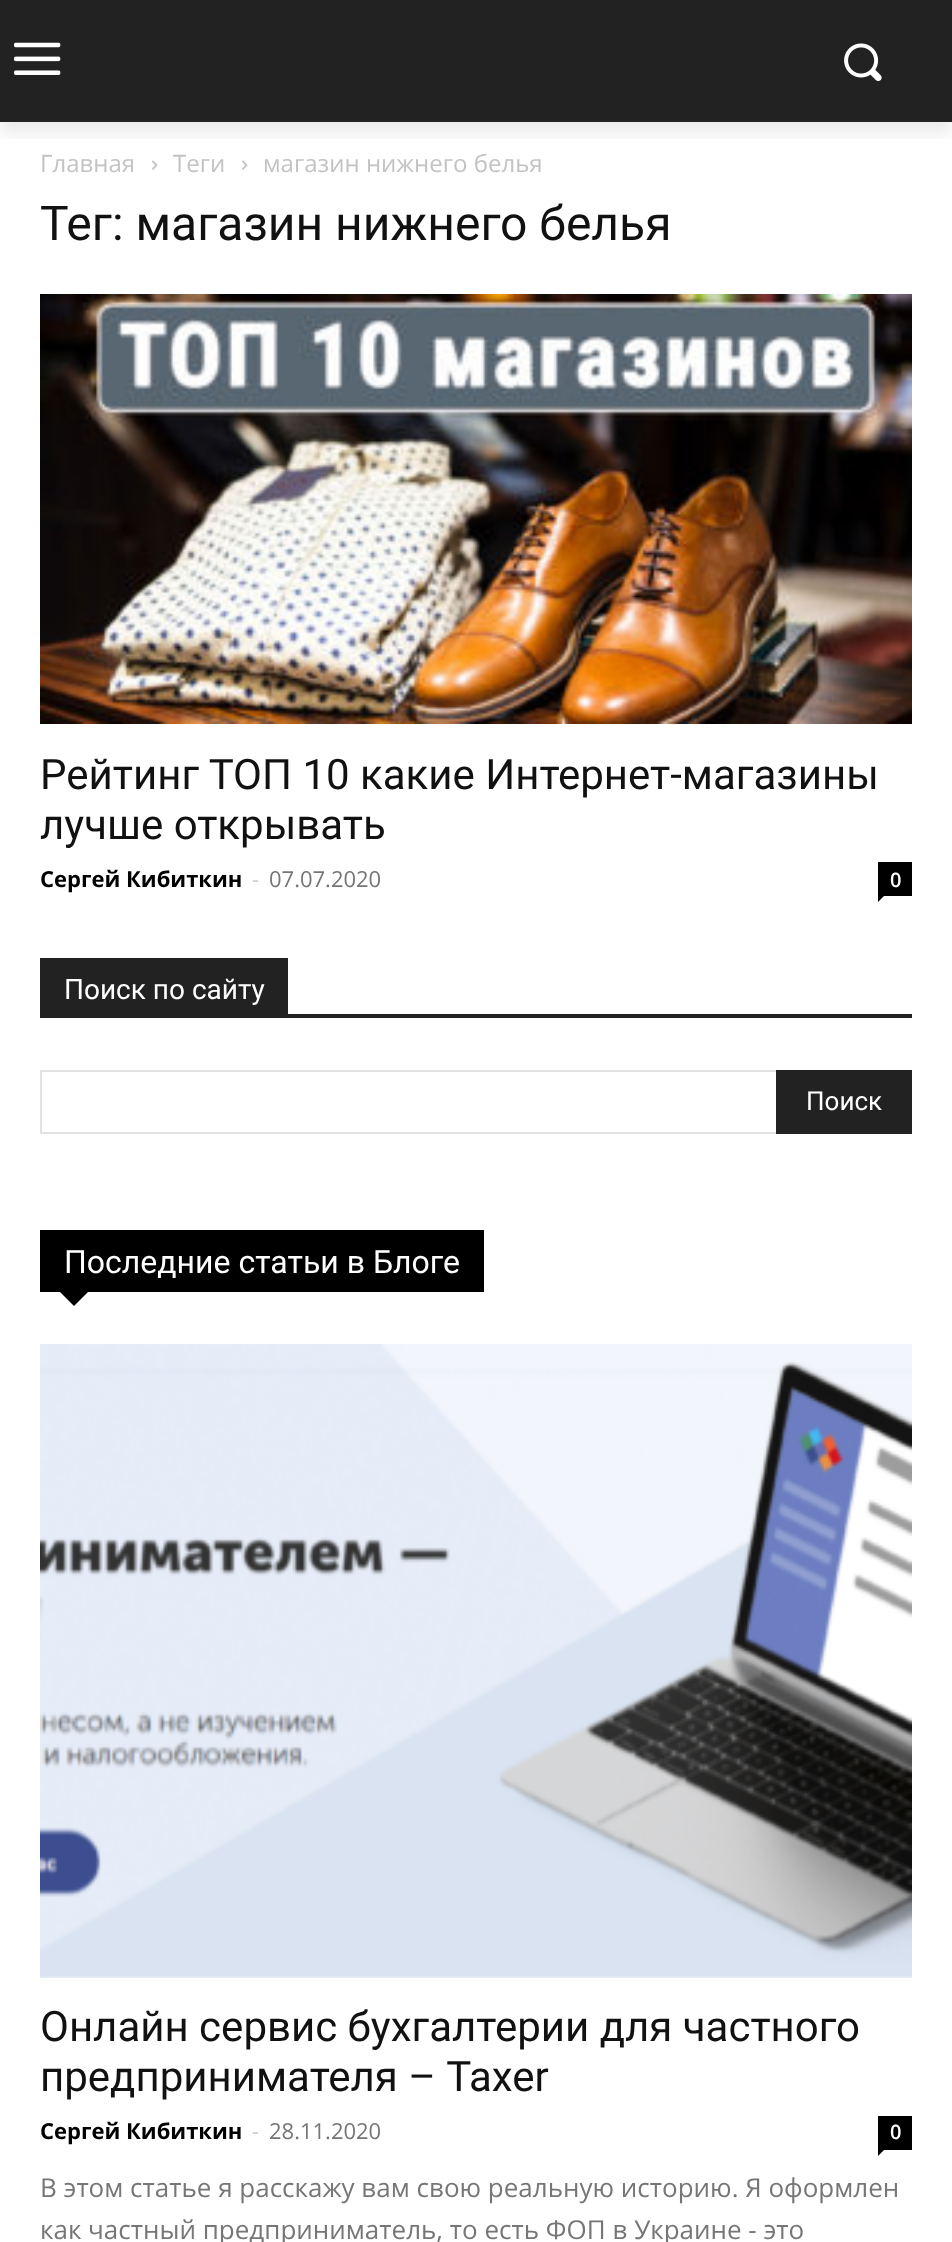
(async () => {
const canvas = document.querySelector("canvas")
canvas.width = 952
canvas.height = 2242
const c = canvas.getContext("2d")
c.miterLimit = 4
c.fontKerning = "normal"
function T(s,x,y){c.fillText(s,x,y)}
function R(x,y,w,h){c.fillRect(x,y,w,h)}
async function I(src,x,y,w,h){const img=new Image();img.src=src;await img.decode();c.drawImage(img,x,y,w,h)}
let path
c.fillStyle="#fff"
R(0,0,952,2242)
c.fillStyle="#222"
R(0,0,952,122)
await I("1.png",14,42,47,33)
await I("2.png",844,43,38,38)
c.save()
c.beginPath()
c.rect(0,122,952,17)
c.clip()
c.fillStyle="#00000014"
c.filter="blur(8px)"
c.beginPath()
c.rect(0,12,952,122)
c.fill()
c.filter="none"
c.restore()
c.font="24px Open Sans"
c.fillStyle="#c3c3c3"
T("Главная",40,172)
await I("3.png",152,160,6,10)
T("Теги",173,172)
await I("3.png",242,160,6,10)
T("магазин нижнего белья",263,172)
c.font="48px Roboto"
c.fillStyle="#111"
T("Тег: магазин нижнего белья",40,240)
await I("4.png",40,294,872,430)
c.font="42px Roboto"
T("Рейтинг ТОП 10 какие Интернет-магазины",40,789)
T("лучше открывать",40,839)
c.font="bold 22px Open Sans"
c.fillStyle="#000"
T("Сергей Кибиткин",40,887)
c.font="22px Open Sans"
c.fillStyle="#ccc"
T("-",252,887)
c.fillStyle="#767676"
T("07.07.2020",269,887)
c.fillStyle="#000"
R(878,862,34,34)
c.font="600 20px Open Sans"
c.fillStyle="#fff"
T("0",890,887)
c.fillStyle="#000"
path = new Path2D("M878 896h6l-6 6z")
c.fill(path)
c.fillStyle="#222"
R(40,1014,872,4)
R(40,958,248,56)
c.font="28px Roboto"
c.fillStyle="#fff"
T("Поиск по сайту",64,999)
c.fillStyle="#e1e1e1"
R(40,1070,736,2)
R(40,1132,736,2)
R(40,1070,2,64)
c.fillStyle="#222"
R(776,1070,136,64)
c.font="26px Roboto"
c.fillStyle="#fff"
T("Поиск",806,1110)
c.fillStyle="#000"
R(40,1230,444,62)
c.font="32px Roboto"
c.fillStyle="#fff"
T("Последние статьи в Блоге",64,1273)
c.fillStyle="#000"
path = new Path2D("M60 1292h28l-14 14z")
c.fill(path)
await I("5.png",40,1344,872,634)
c.font="42px Roboto"
c.fillStyle="#111"
T("Онлайн сервис бухгалтерии для частного",40,2041)
T("предпринимателя – Taxer",40,2091)
c.font="bold 22px Open Sans"
c.fillStyle="#000"
T("Сергей Кибиткин",40,2139)
c.font="22px Open Sans"
c.fillStyle="#ccc"
T("-",252,2139)
c.fillStyle="#767676"
T("28.11.2020",269,2139)
c.fillStyle="#000"
R(878,2116,34,34)
c.font="600 20px Open Sans"
c.fillStyle="#fff"
T("0",890,2139)
c.fillStyle="#000"
path = new Path2D("M878 2150h6l-6 6z")
c.fill(path)
c.font="26px Open Sans"
c.fillStyle="#767676"
T("В этом статье я расскажу вам свою реальную историю. Я оформлен",40,2197)
T("как частный предприниматель, то есть ФОП в Украине - это",40,2239)
})()
